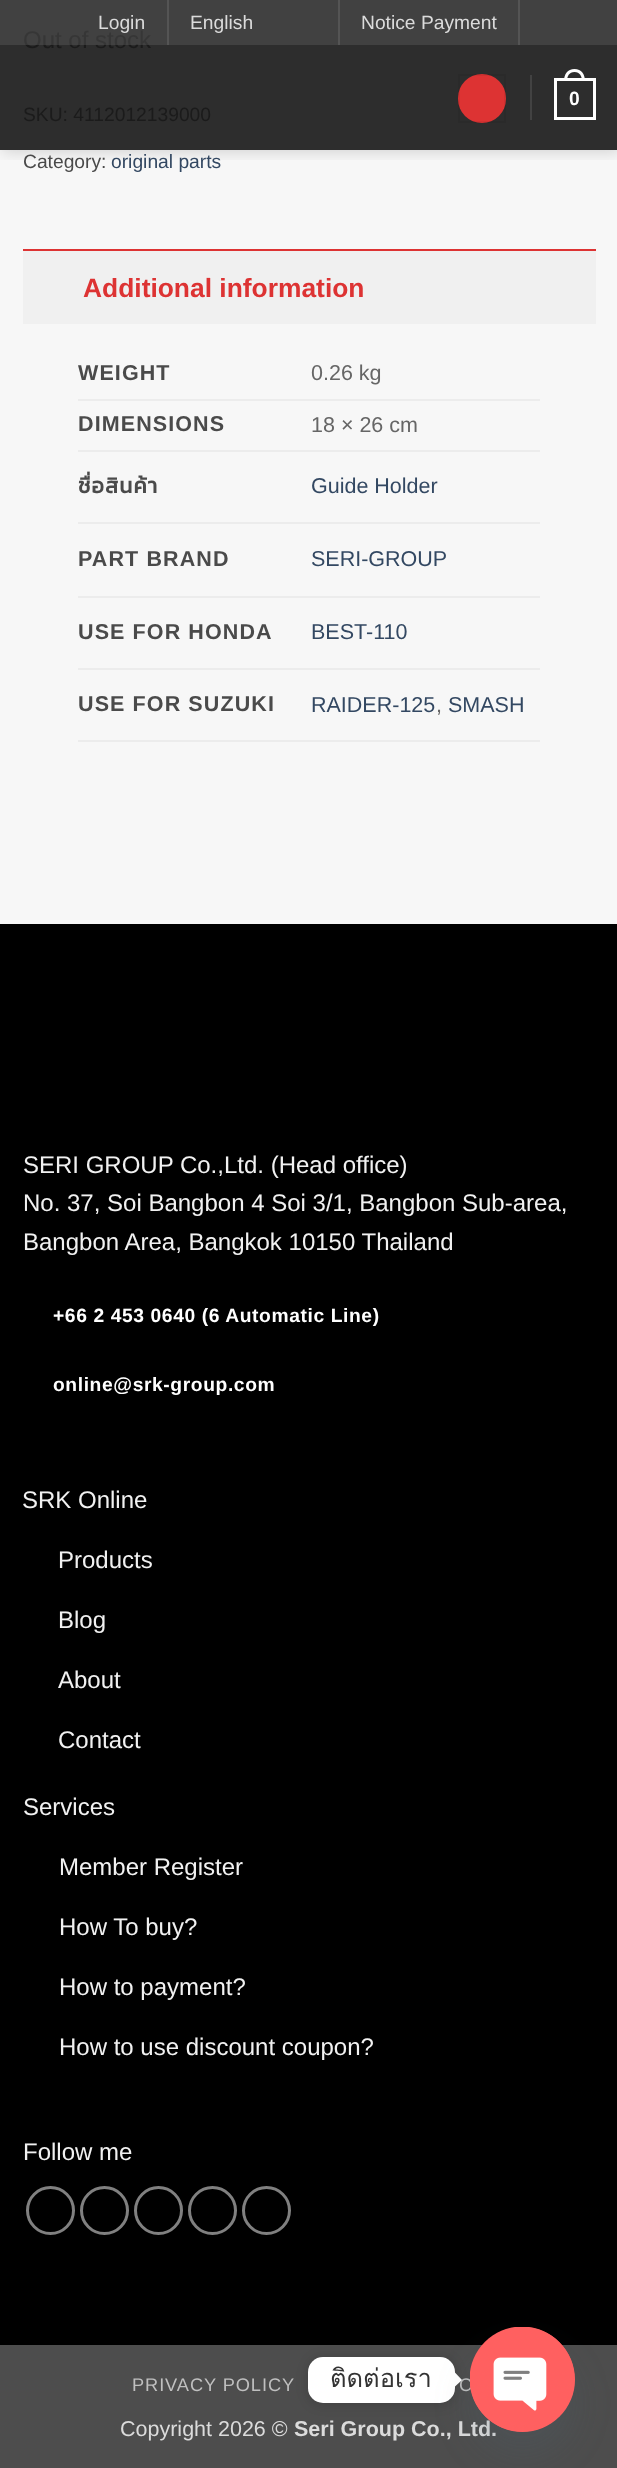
(async () => {
const canvas = document.querySelector("canvas")
canvas.width = 617
canvas.height = 2468
const c = canvas.getContext("2d")
c.miterLimit = 4
c.fontKerning = "normal"
function T(s,x,y){c.fillText(s,x,y)}
function R(x,y,w,h){c.fillRect(x,y,w,h)}
function Q(x,y,w,h,r){c.beginPath();c.roundRect(x,y,w,h,r);c.fill()}
async function I(src,x,y,w,h){const img=new Image();img.src=src;await img.decode();c.drawImage(img,x,y,w,h)}
let path
c.fillStyle="#f7f7f7"
R(0,0,617,2468)
c.fillStyle="#2d2d2d"
R(0,0,617,150)
c.save()
c.beginPath()
c.rect(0,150,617,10)
c.clip()
c.fillStyle="#00000026"
c.filter="blur(7.5px)"
c.beginPath()
c.rect(2,2,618,150)
c.fill()
c.filter="none"
c.restore()
c.font="24px Liberation Sans"
c.fillStyle="#1b1b1b"
T("Out of stock",23,48)
c.fillStyle="#5e5e5e6b"
R(0,0,617,45)
c.font="19.25px Liberation Sans"
c.fillStyle="#dbdbdb"
T("Login",98,29)
c.fillStyle="#545454"
R(167,0,2,45)
c.fillStyle="#dbdbdb"
T("English",190,29)
c.fillStyle="#545454"
R(338,0,2,45)
c.fillStyle="#dbdbdb"
T("Notice Payment",361,29)
c.fillStyle="#545454"
R(518,0,2,45)
c.fillStyle="#d33"
Q(458,74,48,49,24)
c.strokeStyle="#0000000d"
c.lineWidth=2
c.strokeRect(459,75,46,47)
c.fillStyle="#424242"
R(530,75,2,45)
c.strokeStyle="#fff"
c.lineWidth=3
c.strokeRect(555.5,79.5,39,39)
c.fillStyle="#fff"
path = new Path2D("M574.5 69c7 0 10.5 5.5 10.5 12h-21c0-6.5 3.5-12 10.5-12zm0 3c5.5 0 7.5 4.5 7.5 9h-15c0-4.5 2-9 7.5-9z")
c.fill(path,"evenodd")
c.font="bold 19.25px Liberation Sans"
T("0",569,105)
c.font="19.25px Liberation Sans"
c.fillStyle="#1b1b1b"
T("SKU: 4112012139000",23,121)
c.fillStyle="#4a4a4a"
T("Category:",23,168)
c.fillStyle="#334862"
T("original parts",111,168)
c.fillStyle="#f0f0f0"
R(23,251,573,73)
c.fillStyle="#d33"
R(23,249,573,2)
c.font="bold 26.4px Liberation Sans"
T("Additional information",83,297)
c.fillStyle="#ececec"
R(78,399,462,2)
c.letterSpacing="1.1px"
c.font="bold 21.5px Liberation Sans"
c.fillStyle="#4a4a4a"
T("WEIGHT",78,380)
c.letterSpacing="0px"
c.font="21.5px Liberation Sans"
c.fillStyle="#666"
T("0.26 kg",311,380)
c.fillStyle="#ececec"
R(78,450,462,2)
c.letterSpacing="1.1px"
c.font="bold 21.5px Liberation Sans"
c.fillStyle="#4a4a4a"
T("DIMENSIONS",78,431)
c.letterSpacing="0px"
c.font="21.5px Liberation Sans"
c.fillStyle="#666"
T("18 × 26 cm",311,432)
c.fillStyle="#ececec"
R(78,522,462,2)
c.letterSpacing="1.1px"
c.font="bold 21.5px Kanit"
c.fillStyle="#4a4a4a"
T("ชื่อสินค้า",78,493)
c.letterSpacing="0px"
c.font="21.5px Liberation Sans"
c.fillStyle="#334862"
T("Guide Holder",311,493)
c.fillStyle="#ececec"
R(78,596,462,2)
c.letterSpacing="1.1px"
c.font="bold 21.5px Liberation Sans"
c.fillStyle="#4a4a4a"
T("PART BRAND",78,566)
c.letterSpacing="0px"
c.font="21.5px Liberation Sans"
c.fillStyle="#334862"
T("SERI-GROUP",311,566)
c.fillStyle="#ececec"
R(78,668,462,2)
c.letterSpacing="1.1px"
c.font="bold 21.5px Liberation Sans"
c.fillStyle="#4a4a4a"
T("USE FOR HONDA",78,639)
c.letterSpacing="0px"
c.font="21.5px Liberation Sans"
c.fillStyle="#334862"
T("BEST-110",311,639)
c.fillStyle="#ececec"
R(78,740,462,2)
c.letterSpacing="1.1px"
c.font="bold 21.5px Liberation Sans"
c.fillStyle="#4a4a4a"
T("USE FOR SUZUKI",78,711)
c.letterSpacing="0px"
c.font="21.5px Liberation Sans"
c.fillStyle="#334862"
T("RAIDER-125",311,712)
c.fillStyle="#666"
T(",",436,712)
c.fillStyle="#334862"
T("SMASH",448,712)
c.fillStyle="#000"
R(0,924,617,1421)
c.font="24px Liberation Sans"
c.fillStyle="#f1f1f1"
T("SERI GROUP Co.,Ltd. (Head office)",23,1173)
T("No. 37, Soi Bangbon 4 Soi 3/1, Bangbon Sub-area,",23,1211)
T("Bangbon Area, Bangkok 10150 Thailand",23,1250)
c.letterSpacing="0.6px"
c.font="bold 19.25px Liberation Sans"
c.fillStyle="#fff"
T("+66 2 453 0640 (6 Automatic Line)",53,1322)
T("online@srk-group.com",53,1391)
c.letterSpacing="0px"
c.font="24px Liberation Sans"
c.fillStyle="#f1f1f1"
T("SRK Online",22,1508)
T("Products",58,1568)
T("Blog",58,1628)
T("About",58,1688)
T("Contact",58,1748)
T("Services",23,1815)
T("Member Register",59,1875)
T("How To buy?",59,1935)
T("How to payment?",59,1995)
T("How to use discount coupon?",59,2055)
T("Follow me",23,2160)
c.beginPath()
c.arc(50.5,2210.5,23,0,7)
c.strokeStyle="#808080"
c.stroke()
c.beginPath()
c.arc(104.5,2210.5,23,0,7)
c.stroke()
c.beginPath()
c.arc(158.5,2210.5,23,0,7)
c.stroke()
c.beginPath()
c.arc(212.5,2210.5,23,0,7)
c.stroke()
c.beginPath()
c.arc(266.5,2210.5,23,0,7)
c.stroke()
c.fillStyle="#4d4d4d"
R(0,2345,617,123)
c.letterSpacing="0.9px"
c.font="18.25px Liberation Sans"
c.fillStyle="#bfbfbf"
T("PRIVACY POLICY",132,2391)
T("C",459,2391)
c.letterSpacing="0px"
c.font="21.5px Liberation Sans"
c.fillStyle="#dbdbdb"
T("Copyright 2026 ©",120,2436)
c.font="bold 21.5px Liberation Sans"
T("Seri Group Co., Ltd.",294,2436)
c.fillStyle="#00000026"
c.filter="blur(6px)"
c.beginPath()
c.roundRect(308,2358,147,47,15)
c.fill()
c.filter="none"
c.fillStyle="#fff"
Q(308,2357,147,46,15)
c.font="25.5px Loma"
c.fillStyle="#333"
T("ติดต่อเรา",330,2387)
c.fillStyle="#fff"
path = new Path2D("M454.5 2387v-15l7.5 8z")
c.fill(path)
c.fillStyle="#49687e29"
c.filter="blur(18px)"
c.beginPath()
c.roundRect(470,2351,105,105,52.5)
c.fill()
c.filter="none"
c.fillStyle="#ff6060"
c.beginPath()
c.arc(522.5,2379.5,52.5,0,7)
c.fill()
await I("1.png",470,2327,105,105)
})()
